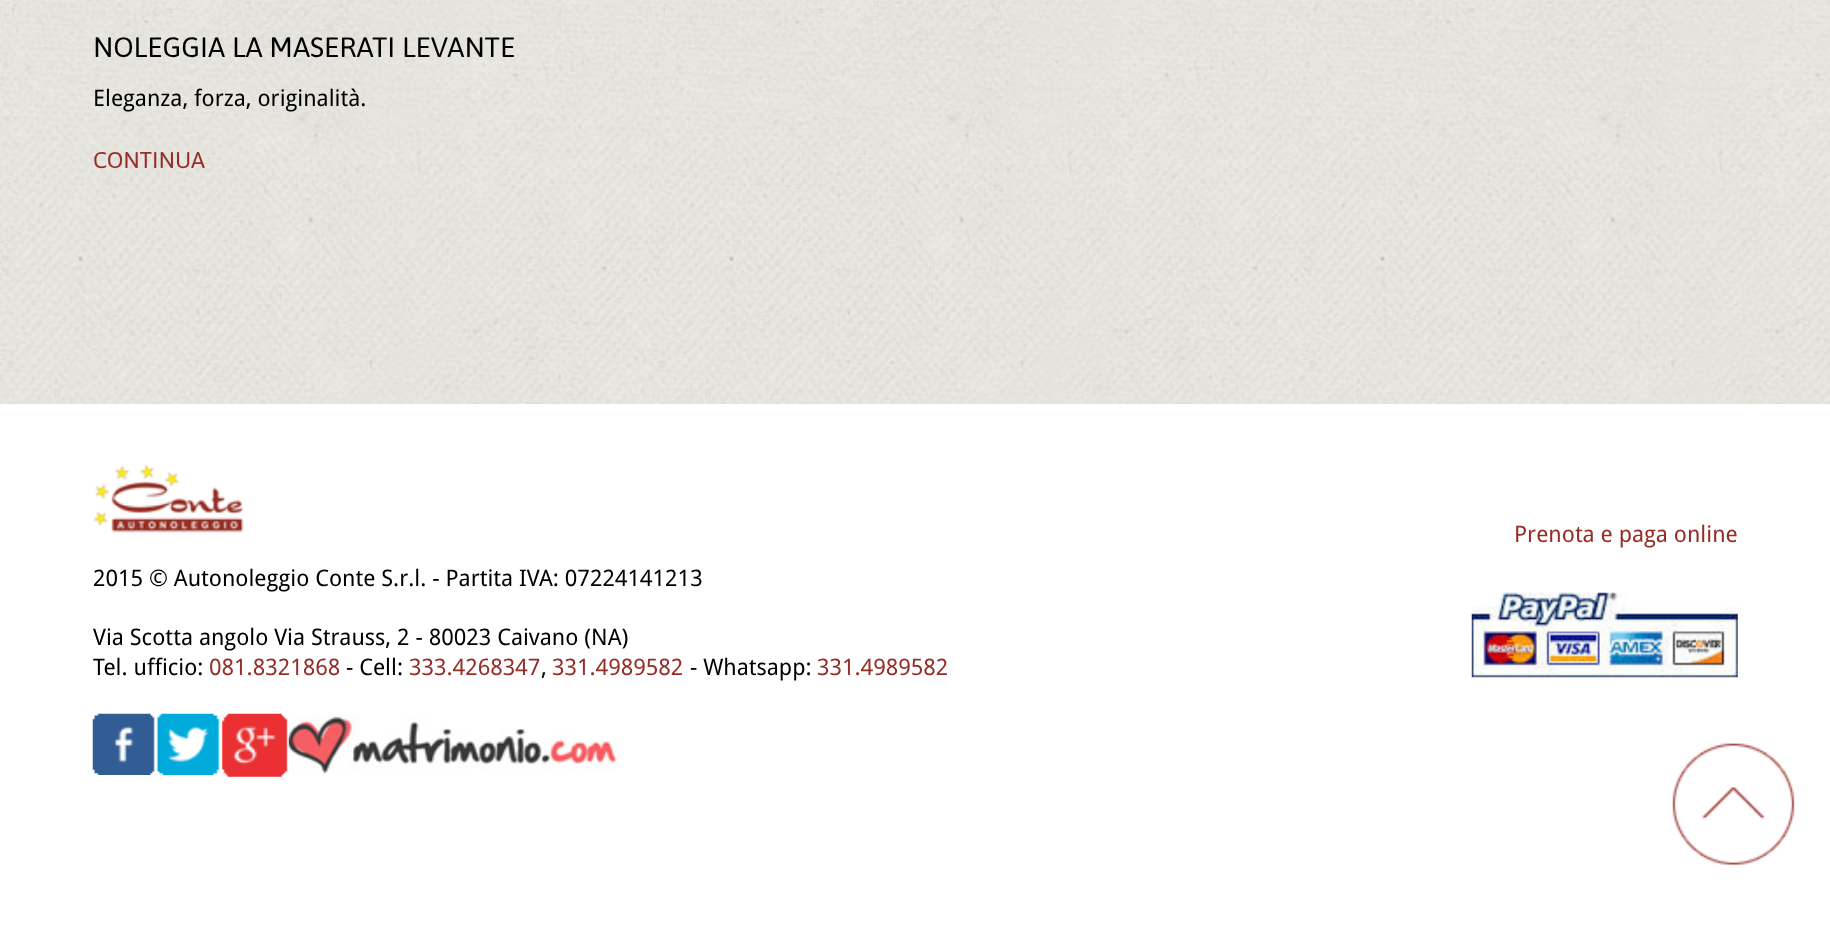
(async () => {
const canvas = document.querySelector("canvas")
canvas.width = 1830
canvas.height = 936
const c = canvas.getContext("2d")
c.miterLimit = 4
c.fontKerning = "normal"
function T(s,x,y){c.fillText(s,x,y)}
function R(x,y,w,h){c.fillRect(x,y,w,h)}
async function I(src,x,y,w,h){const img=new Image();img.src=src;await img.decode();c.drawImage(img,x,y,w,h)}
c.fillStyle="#fff"
R(0,0,1830,936)
await I("1.png",0,0,1830,404)
c.font="28px Asap"
c.fillStyle="#000"
T("NOLEGGIA LA MASERATI LEVANTE",93,57)
c.font="22.75px Droid Sans"
T("Eleganza, forza, originalità.",93,106)
c.font="22.75px Asap"
c.fillStyle="#962e27"
T("CONTINUA",93,168)
c.font="22.75px Droid Sans"
T("Prenota e paga online",1514,542)
await I("2.png",1471,592,267,86)
await I("3.png",93,464,151,69)
c.fillStyle="#000"
T("2015 © Autonoleggio Conte S.r.l. - Partita IVA: 07224141213",93,586)
T("Via Scotta angolo Via Strauss, 2 - 80023 Caivano (NA)",93,645)
T("Tel. ufficio:",93,675)
c.fillStyle="#962e27"
T("081.8321868",209,675)
c.fillStyle="#000"
T("- Cell:",346,675)
c.fillStyle="#962e27"
T("333.4268347",409,675)
c.fillStyle="#000"
T(",",541,675)
c.fillStyle="#962e27"
T("331.4989582",552,675)
c.fillStyle="#000"
T("- Whatsapp:",690,675)
c.fillStyle="#962e27"
T("331.4989582",817,675)
await I("4.png",92,713,63,62)
await I("5.png",157,713,63,62)
await I("6.png",222,713,66,64)
await I("7.png",288,714,331,60)
await I("8.png",1672,743,123,122)
})()
